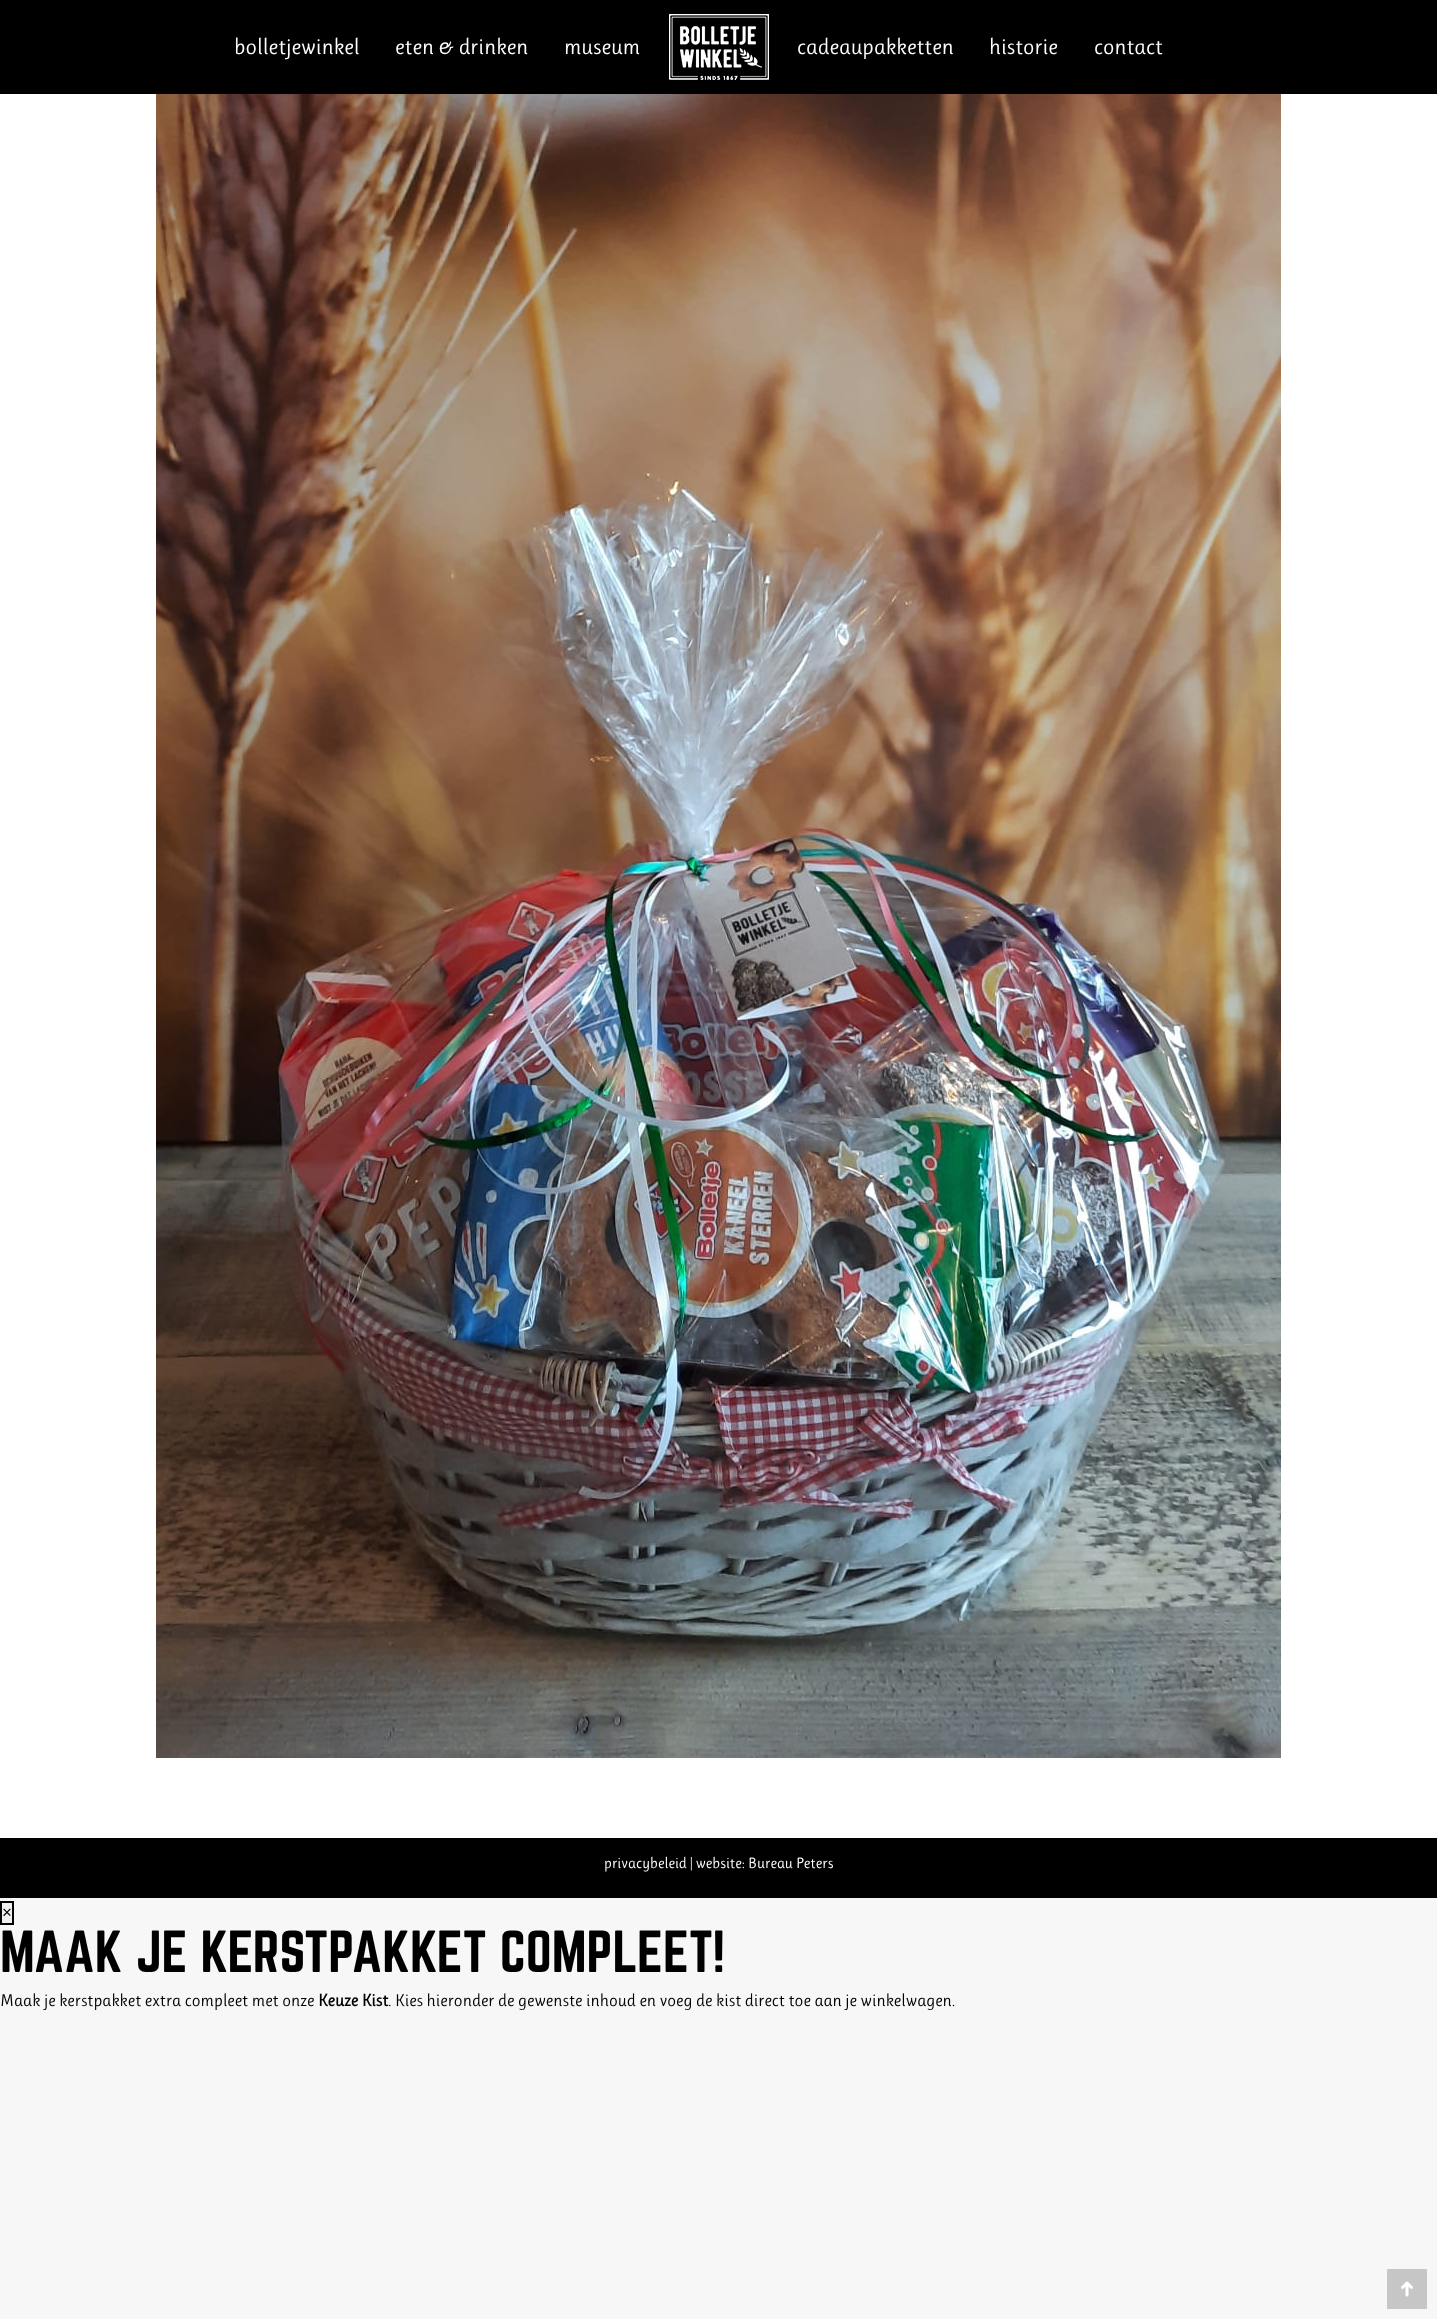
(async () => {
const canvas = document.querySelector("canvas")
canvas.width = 1437
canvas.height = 2319
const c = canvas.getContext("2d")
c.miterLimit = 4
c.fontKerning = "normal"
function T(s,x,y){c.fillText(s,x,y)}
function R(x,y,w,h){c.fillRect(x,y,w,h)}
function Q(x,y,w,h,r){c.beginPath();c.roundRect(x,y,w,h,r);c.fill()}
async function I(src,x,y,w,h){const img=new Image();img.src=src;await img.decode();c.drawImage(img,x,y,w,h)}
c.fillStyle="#f7f7f7"
R(0,0,1437,2319)
c.fillStyle="#000"
R(0,0,1437,94)
c.font="22px Ruluko"
c.fillStyle="#fff"
T("bolletjewinkel",234,54)
T("eten & drinken",395,54)
T("museum",564,54)
await I("1.png",669,14,100,66)
T("cadeaupakketten",797,54)
T("historie",989,54)
T("contact",1094,54)
R(0,94,1437,1744)
await I("2.png",156,94,1125,1664)
c.fillStyle="#000"
R(0,1838,1437,60)
c.font="15px Ruluko"
c.fillStyle="#fff"
T("privacybeleid | website: Bureau Peters",604,1868)
c.fillStyle="#c6c6c6"
Q(1387,2269,40,40,1)
await I("3.png",1401,2281,12,16)
c.fillStyle="#efefef"
c.beginPath()
c.rect(1,1902,12,22)
c.fill()
c.strokeStyle="#000"
c.lineWidth=2
c.stroke()
c.font="17px Liberation Sans"
c.fillStyle="#000"
T("×",2,1918)
c.font="52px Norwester"
T("MAAK JE KERSTPAKKET COMPLEET!",0,1972)
c.font="17px Ruluko"
T("Maak je kerstpakket extra compleet met onze",0,2006)
c.font="bold 17px Ruluko"
T("Keuze Kist",318,2006)
c.font="17px Ruluko"
T(". Kies hieronder de gewenste inhoud en voeg de kist direct toe aan je winkelwagen.",388,2006)
})()
